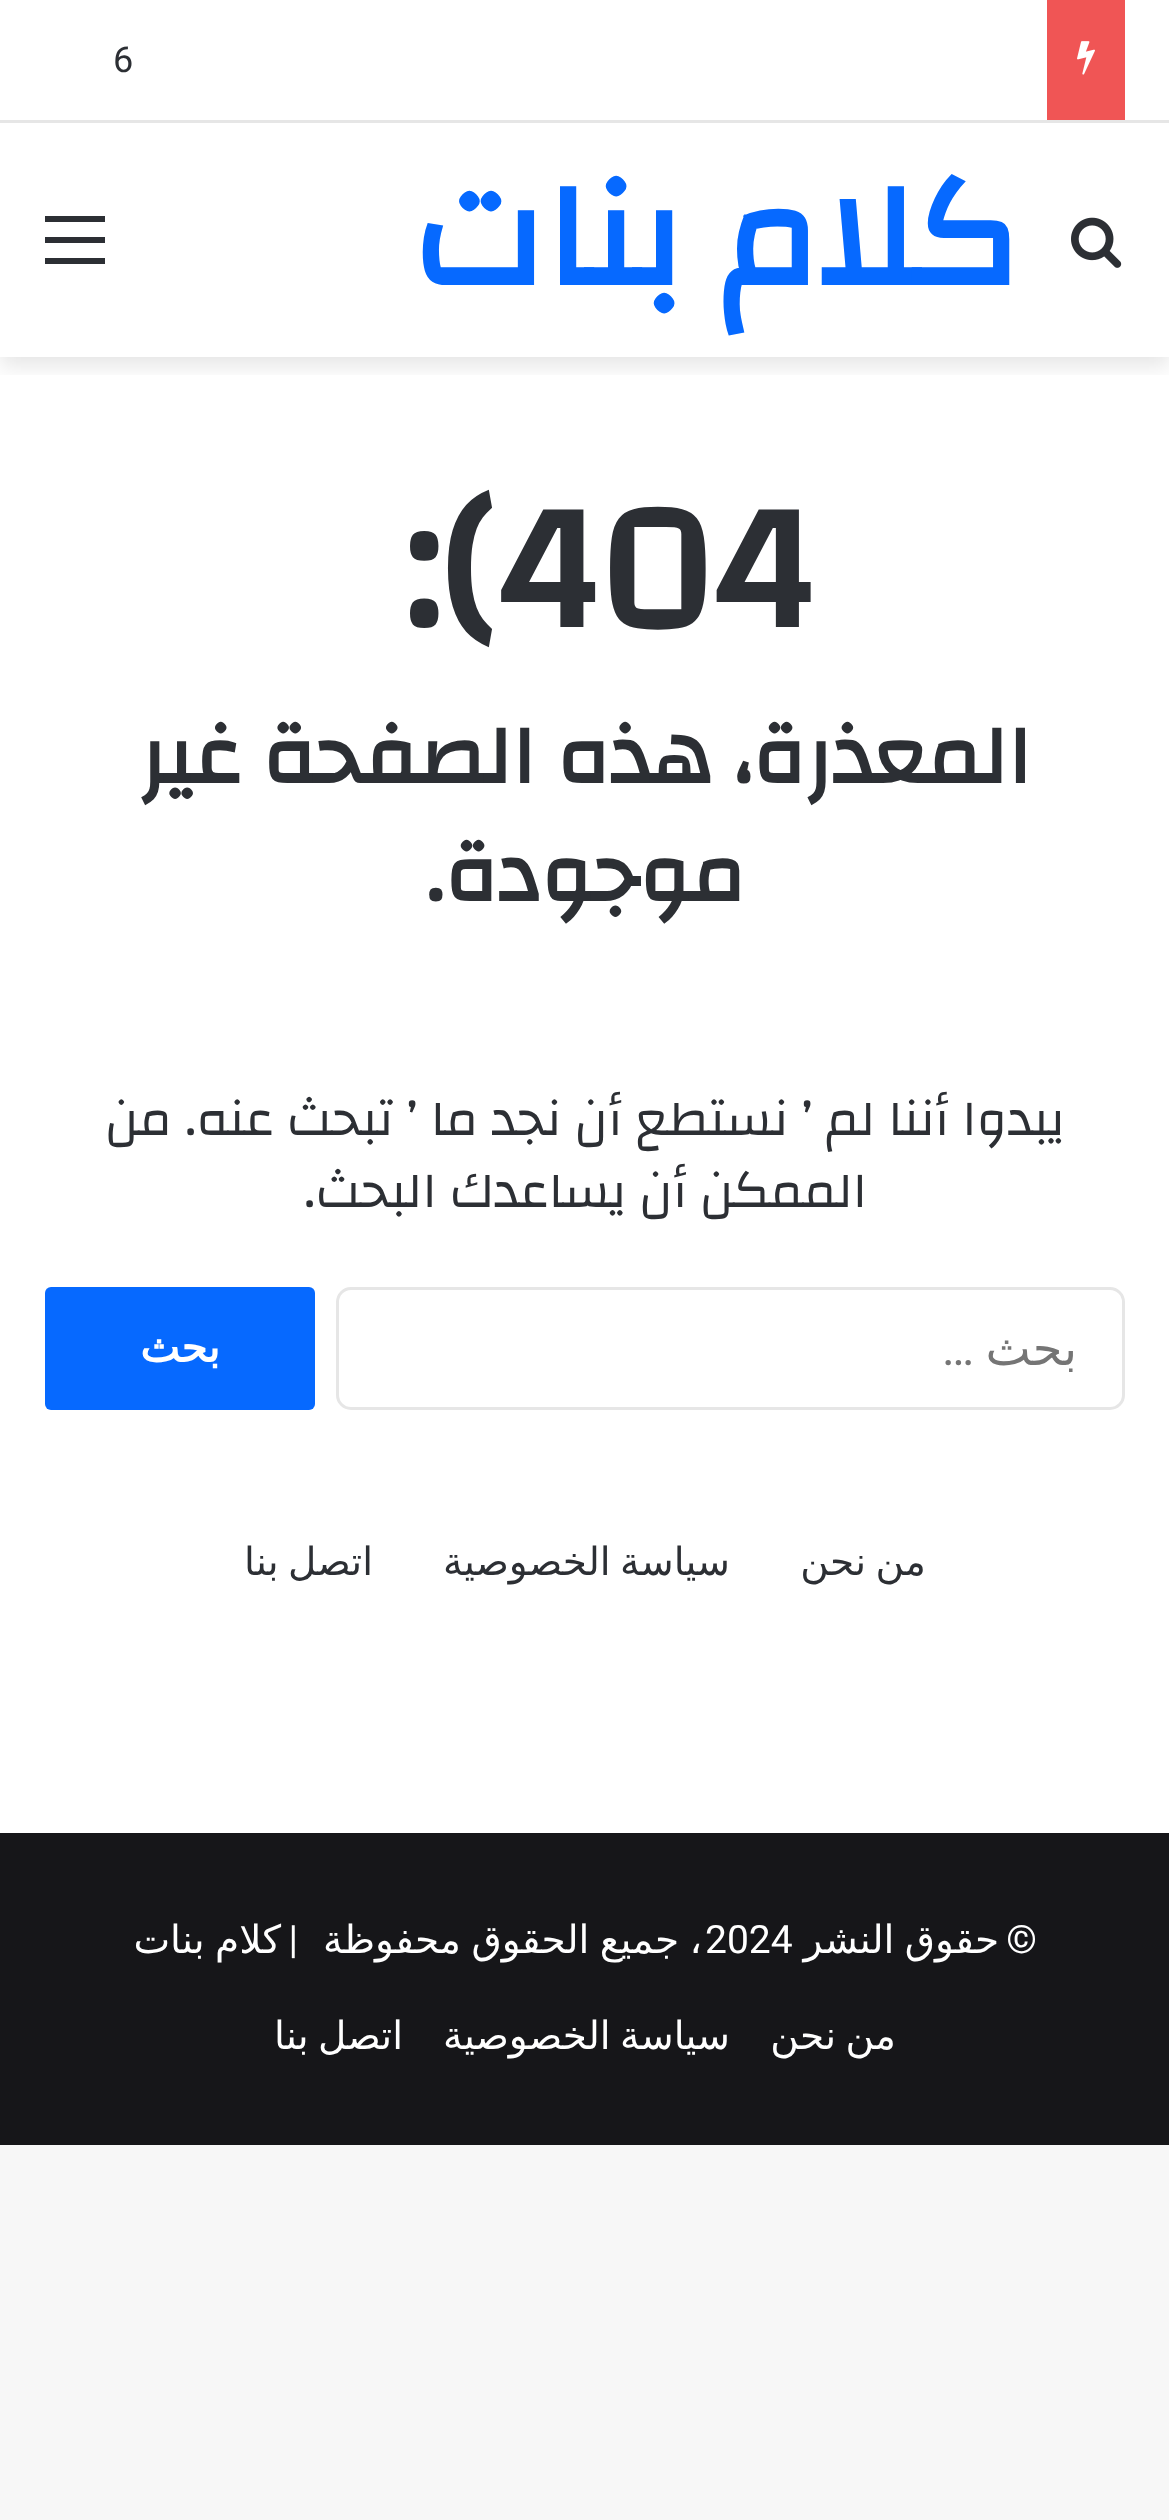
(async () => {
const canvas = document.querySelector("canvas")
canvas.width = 1169
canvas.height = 2520
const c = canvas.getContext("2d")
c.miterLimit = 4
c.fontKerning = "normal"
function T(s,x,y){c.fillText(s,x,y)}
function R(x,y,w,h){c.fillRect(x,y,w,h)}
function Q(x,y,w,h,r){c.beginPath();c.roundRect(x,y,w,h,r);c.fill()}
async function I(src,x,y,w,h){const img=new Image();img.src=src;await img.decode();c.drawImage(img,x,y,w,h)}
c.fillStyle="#f7f7f7"
R(0,0,1169,2520)
c.fillStyle="#fff"
R(0,123,1169,1710)
c.save()
c.beginPath()
c.rect(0,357,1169,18)
c.clip()
c.fillStyle="#0000001a"
c.filter="blur(10.5px)"
c.beginPath()
c.rect(0,132,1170,234)
c.fill()
c.filter="none"
c.restore()
R(0,0,1169,120)
c.fillStyle="#e6e6e6"
R(0,120,1169,3)
c.fillStyle="#f05555"
R(1047,0,78,120)
await I("1.png",1077,41,18,34)
c.font="36px Roboto"
c.fillStyle="#2c2f34"
T("6",113,72)
await I("2.png",1071,217,51,51)
c.direction="rtl"
c.font="bold 150px Changa"
c.fillStyle="#0669ff"
T("كلام بنات",1020,285)
c.fillStyle="#2c2f34"
R(45,237,60,6)
R(45,216,60,6)
R(45,258,60,6)
c.direction="ltr"
c.font="bold 180px Changa"
T(":(404",401,627)
c.direction="rtl"
c.font="bold 84px Changa"
T("المعذرة، هذه الصفحة غير",1031,783)
T("موجودة.",745,901)
c.font="51px Changa"
T("يبدوا أننا لم ’ نستطع أن نجد ما ’ تبحث عنه. من",1065,1135)
T("الممكن أن يساعدك البحث.",867,1207)
c.beginPath()
c.roundRect(337.5,1288.5,786,120,13.5)
c.strokeStyle="#e6e6e6"
c.lineWidth=3
c.stroke()
c.font="48px DejaVu Sans"
c.fillStyle="#757575"
T("بحث",1077,1365)
c.font="48px Roboto"
T("…",974,1365)
c.fillStyle="#0669ff"
Q(45,1287,270,123,6)
c.font="bold 42px DejaVu Sans"
c.fillStyle="#fff"
T("بحث",220,1362)
c.wordSpacing="-3px"
c.font="39px DejaVu Sans"
c.fillStyle="#2c2f34"
T("من نحن",926,1575)
T("سياسة الخصوصية",730,1575)
T("اتصل بنا",373,1575)
c.fillStyle="#161619"
R(0,1833,1169,312)
c.wordSpacing="0px"
c.font="39px Roboto"
c.fillStyle="#fff"
T("©",1037,1953)
c.wordSpacing="-2px"
c.font="39px DejaVu Sans"
T("حقوق النشر",999,1953)
c.wordSpacing="0px"
c.direction="ltr"
c.font="39px Roboto"
T("2024",705,1953)
c.wordSpacing="-2px"
c.direction="rtl"
c.font="39px DejaVu Sans"
T("، جميع الحقوق محفوظة",702,1953)
c.wordSpacing="0px"
c.font="39px Roboto"
T("|",298,1953)
c.wordSpacing="-2px"
c.font="39px DejaVu Sans"
T("كلام بنات",281,1953)
c.wordSpacing="-3px"
T("من نحن",896,2049)
T("سياسة الخصوصية",730,2049)
T("اتصل بنا",403,2049)
})()
